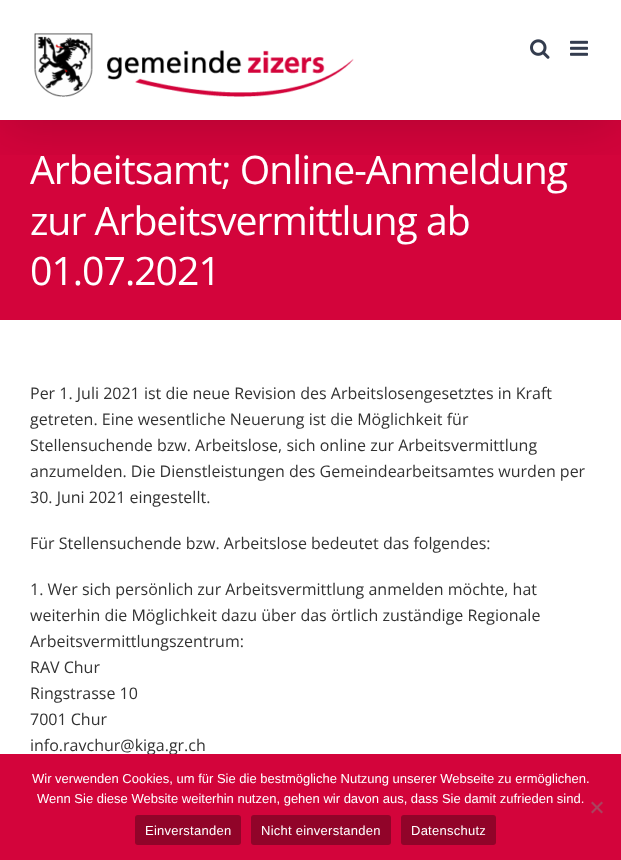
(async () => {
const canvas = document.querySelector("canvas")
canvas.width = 621
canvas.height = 860
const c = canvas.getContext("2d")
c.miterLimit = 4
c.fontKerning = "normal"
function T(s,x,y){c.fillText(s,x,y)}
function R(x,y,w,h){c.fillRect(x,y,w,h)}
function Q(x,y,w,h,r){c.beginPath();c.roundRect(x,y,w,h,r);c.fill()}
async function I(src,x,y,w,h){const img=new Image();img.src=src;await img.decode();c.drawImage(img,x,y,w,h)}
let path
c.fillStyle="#fff"
R(0,0,621,860)
c.fillStyle="#d3043b"
R(0,120,621,200)
c.save()
c.beginPath()
c.rect(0,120,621,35)
c.clip()
c.fillStyle="#00000024"
c.filter="blur(25px)"
c.beginPath()
c.rect(2,12,617,116)
c.fill()
c.filter="none"
c.restore()
await I("1.png",34,33,320,64)
await I("2.png",530,39,20,20)
await I("3.png",570,40,18,16)
c.letterSpacing="-1px"
c.font="39.2px Open Sans"
c.fillStyle="#fff"
T("Arbeitsamt; Online-Anmeldung",30,184)
T("zur Arbeitsvermittlung ab",30,235)
T("01.07.2021",30,285)
c.letterSpacing="0px"
c.font="16px Open Sans"
c.fillStyle="#333"
T("Per 1. Juli 2021 ist die neue Revision des Arbeitslosengesetztes in Kraft",30,399)
T("getreten. Eine wesentliche Neuerung ist die Möglichkeit für",30,425)
T("Stellensuchende bzw. Arbeitslose, sich online zur Arbeitsvermittlung",30,451)
T("anzumelden. Die Dienstleistungen des Gemeindearbeitsamtes wurden per",30,477)
T("30. Juni 2021 eingestellt.",30,503)
T("Für Stellensuchende bzw. Arbeitslose bedeutet das folgendes:",30,549)
T("1. Wer sich persönlich zur Arbeitsvermittlung anmelden möchte, hat",30,595)
T("weiterhin die Möglichkeit dazu über das örtlich zuständige Regionale",30,621)
T("Arbeitsvermittlungszentrum:",30,647)
T("RAV Chur",30,673)
T("Ringstrasse 10",30,699)
T("7001 Chur",30,725)
T("info.ravchur@kiga.gr.ch",30,751)
c.fillStyle="#d3043b"
R(0,754,621,106)
c.font="13px Liberation Sans"
c.fillStyle="#fff"
T("Wir verwenden Cookies, um für Sie die bestmögliche Nutzung unserer Webseite zu ermöglichen.",32,783)
T("Wenn Sie diese Website weiterhin nutzen, gehen wir davon aus, dass Sie damit zufrieden sind.",37,803)
c.fillStyle="#aa425e"
path = new Path2D("M601.5 801.5l1.5 1.5l-10.5 10.5l-1.5-1.5z")
c.fill(path)
path = new Path2D("M591 803l1.5-1.5l10.5 10.5l-1.5 1.5z")
c.fill(path)
c.fillStyle="#910429"
Q(135,815,106,30,3)
c.letterSpacing="0.25px"
c.fillStyle="#fff"
T("Einverstanden",145,835)
c.fillStyle="#910429"
Q(251,815,140,30,3)
c.fillStyle="#fff"
T("Nicht einverstanden",261,835)
c.fillStyle="#910429"
Q(401,815,95,30,3)
c.fillStyle="#fff"
T("Datenschutz",411,835)
})()
